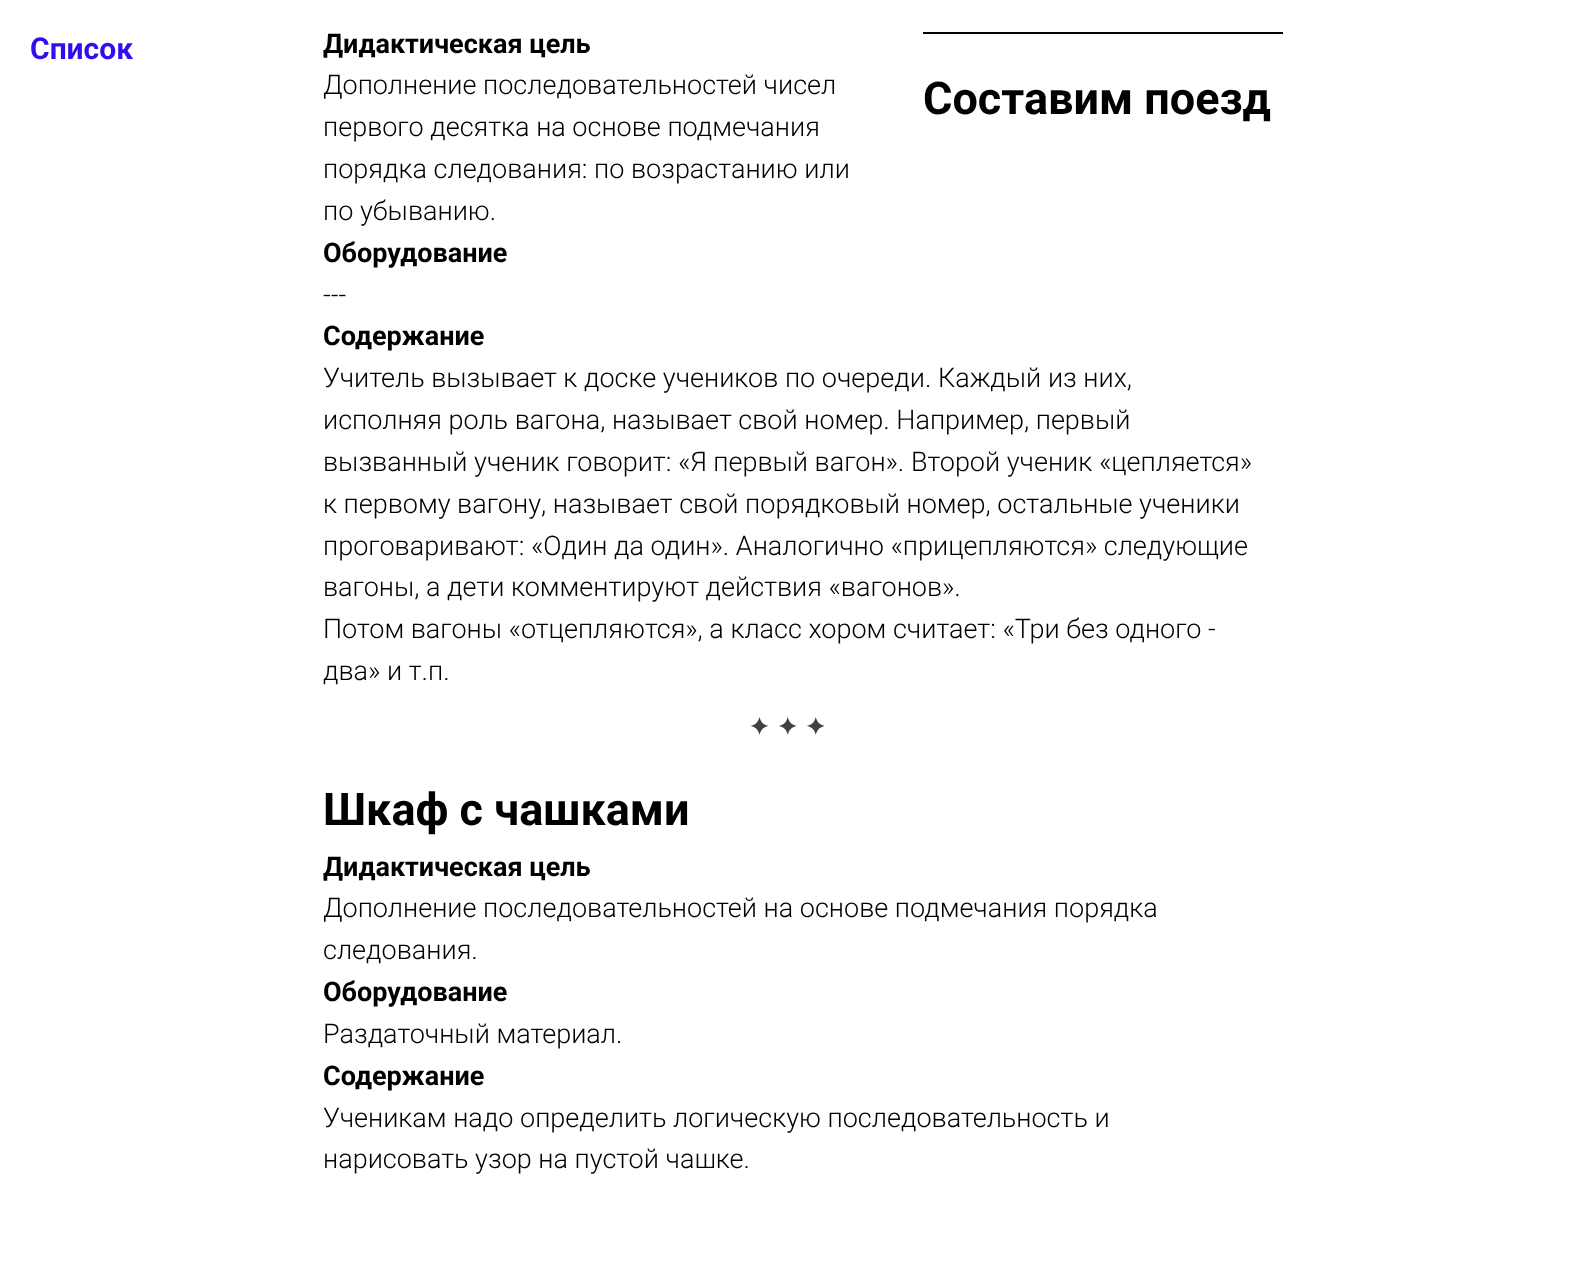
(async () => {
const canvas = document.querySelector("canvas")
canvas.width = 1575
canvas.height = 1272
const c = canvas.getContext("2d")
c.miterLimit = 4
c.fontKerning = "normal"
function T(s,x,y){c.fillText(s,x,y)}
function R(x,y,w,h){c.fillRect(x,y,w,h)}
async function I(src,x,y,w,h){const img=new Image();img.src=src;await img.decode();c.drawImage(img,x,y,w,h)}
c.fillStyle="#fff"
R(0,0,1575,1272)
c.font="bold 30px Roboto"
c.fillStyle="#340ced"
T("Список",30,59)
c.font="bold 27px Roboto"
c.fillStyle="#000"
T("Дидактическая цель",323,53)
c.font="300 27px Roboto"
T("Дополнение последовательностей чисел",323,94)
T("первого десятка на основе подмечания",323,136)
T("порядка следования: по возрастанию или",323,178)
T("по убыванию.",323,220)
c.font="bold 27px Roboto"
T("Оборудование",323,262)
c.font="300 27px Roboto"
T("---",323,304)
c.font="bold 27px Roboto"
T("Содержание",323,345)
c.font="300 27px Roboto"
T("Учитель вызывает к доске учеников по очереди. Каждый из них,",323,387)
T("исполняя роль вагона, называет свой номер. Например, первый",323,429)
T("вызванный ученик говорит: «Я первый вагон». Второй ученик «цепляется»",323,471)
T("к первому вагону, называет свой порядковый номер, остальные ученики",323,513)
T("проговаривают: «Один да один». Аналогично «прицепляются» следующие",323,555)
T("вагоны, а дети комментируют действия «вагонов».",323,596)
T("Потом вагоны «отцепляются», а класс хором считает: «Три без одного -",323,638)
T("два» и т.п.",323,680)
R(923,32,360,2)
c.font="bold 45px Roboto"
T("Составим поезд",923,114)
await I("1.png",750,717,75,18)
T("Шкаф с чашками",323,825)
c.font="bold 27px Roboto"
T("Дидактическая цель",323,876)
c.font="300 27px Roboto"
T("Дополнение последовательностей на основе подмечания порядка",323,917)
T("следования.",323,959)
c.font="bold 27px Roboto"
T("Оборудование",323,1001)
c.font="300 27px Roboto"
T("Раздаточный материал.",323,1043)
c.font="bold 27px Roboto"
T("Содержание",323,1085)
c.font="300 27px Roboto"
T("Ученикам надо определить логическую последовательность и",323,1127)
T("нарисовать узор на пустой чашке.",323,1168)
})()
